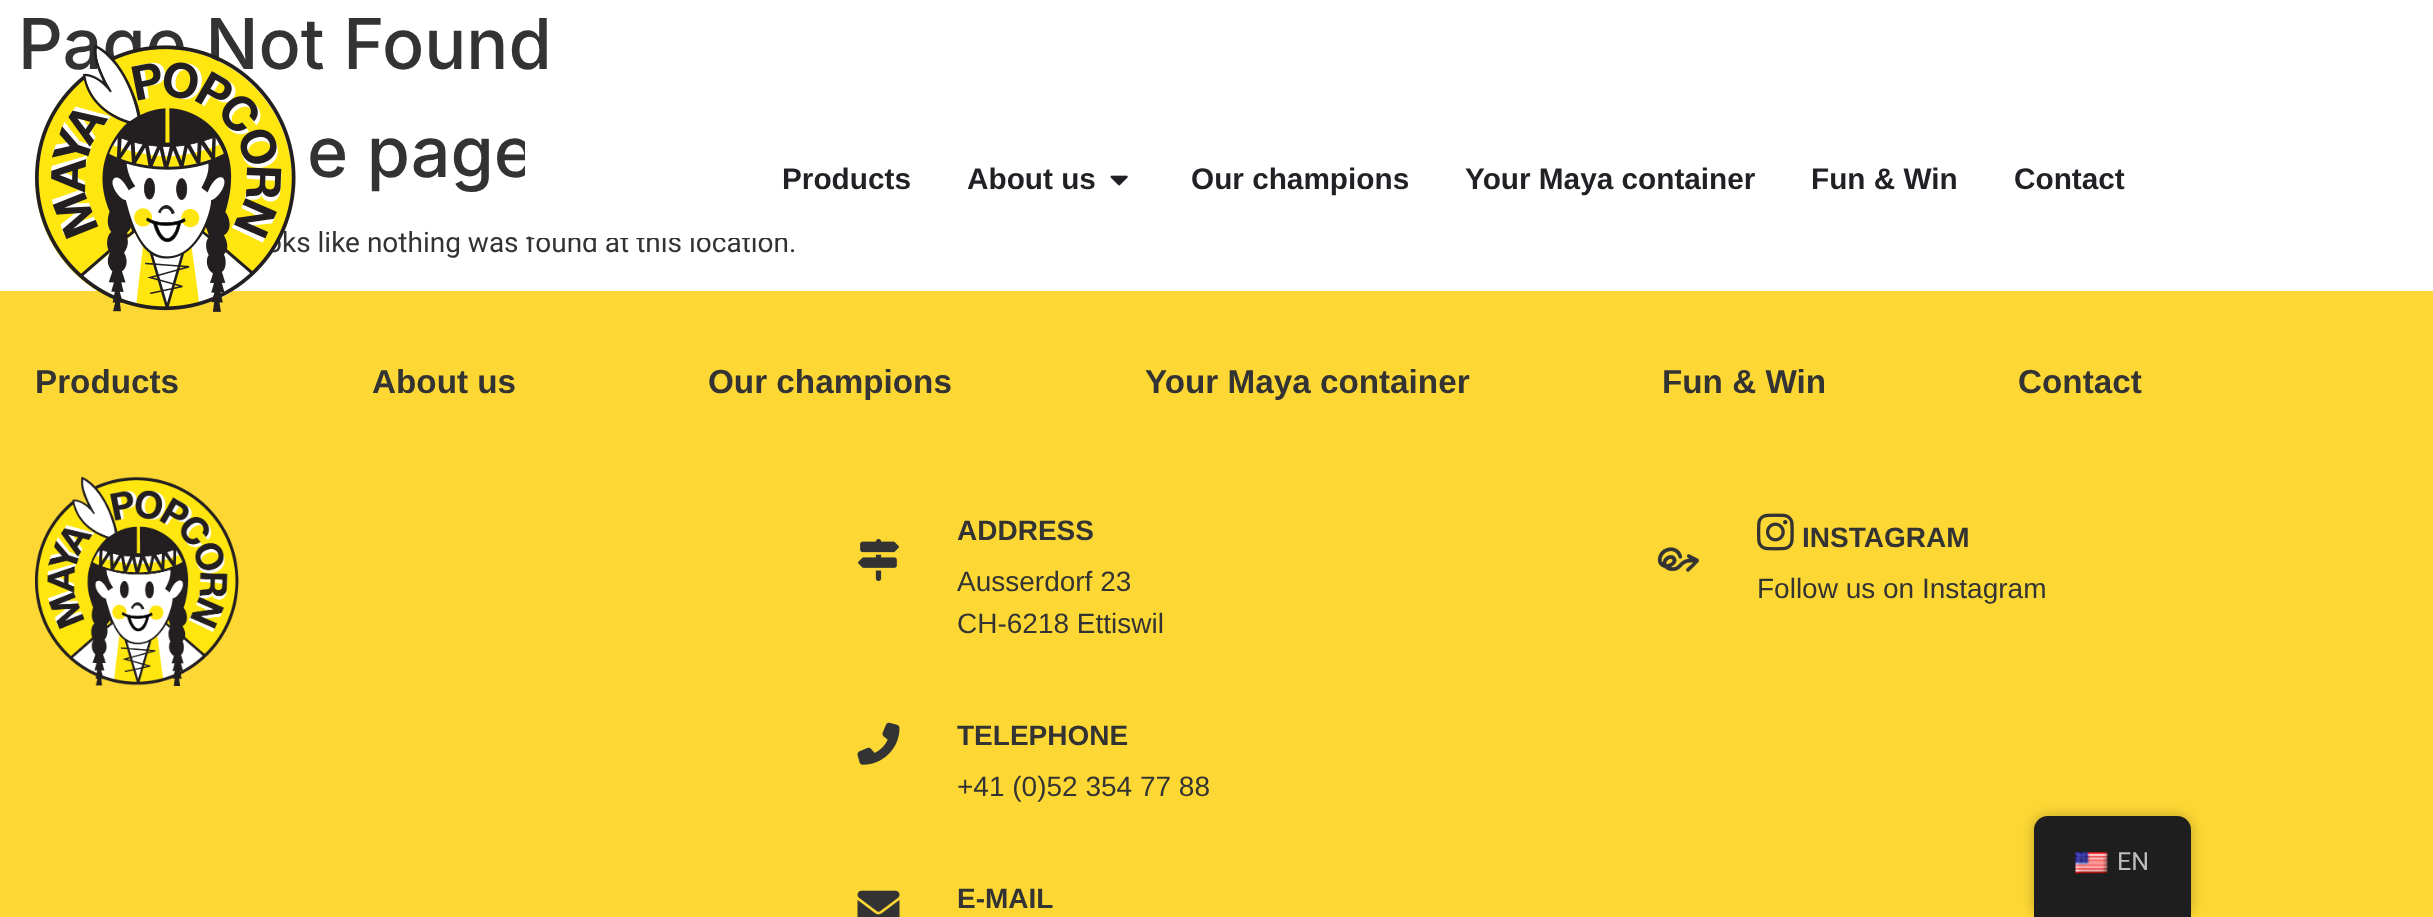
(async () => {
const canvas = document.querySelector("canvas")
canvas.width = 2433
canvas.height = 917
const c = canvas.getContext("2d")
c.miterLimit = 4
c.fontKerning = "normal"
function T(s,x,y){c.fillText(s,x,y)}
function R(x,y,w,h){c.fillRect(x,y,w,h)}
function Q(x,y,w,h,r){c.beginPath();c.roundRect(x,y,w,h,r);c.fill()}
async function I(src,x,y,w,h){const img=new Image();img.src=src;await img.decode();c.drawImage(img,x,y,w,h)}
c.fillStyle="#fff"
R(0,0,2433,917)
c.font="500 70px Inter"
c.fillStyle="#333"
T("Page Not Found",18,69)
c.font="28px Roboto"
T("oks like nothing was found at this location.",266,252)
c.fillStyle="#fdd835"
R(0,291,2433,626)
await I("1.png",35,45,261,267)
c.font="500 70px Inter"
c.fillStyle="#333"
T("e page",307,177)
c.fillStyle="#fff"
Q(525,121,1857,117,9)
c.font="bold 29.75px Liberation Sans"
c.fillStyle="#1f2124"
T("Products",782,189)
T("About us",967,189)
await I("2.png",1110,175,18,11)
T("Our champions",1191,189)
T("Your Maya container",1465,189)
T("Fun & Win",1811,189)
T("Contact",2014,189)
c.font="bold 33.25px Liberation Sans"
c.fillStyle="#333"
T("Products",35,393)
T("About us",372,393)
T("Our champions",708,393)
T("Your Maya container",1145,393)
T("Fun & Win",1662,393)
T("Contact",2018,393)
await I("3.png",35,476,204,210)
await I("4.png",858,539,41,42)
c.font="bold 28px Liberation Sans"
T("ADDRESS",957,540)
c.font="28px Liberation Sans"
T("Ausserdorf 23",957,591)
T("CH-6218 Ettiswil",957,633)
await I("5.png",857,722,43,43)
c.font="bold 28px Liberation Sans"
T("TELEPHONE",957,745)
c.font="28px Liberation Sans"
T("+41 (0)52 354 77 88",957,796)
await I("6.png",857,890,43,27)
c.font="bold 28px Liberation Sans"
T("E-MAIL",957,908)
await I("7.png",1657,547,42,25)
await I("8.png",1757,513,37,38)
T("INSTAGRAM",1802,547)
c.font="28px Liberation Sans"
T("Follow us on Instagram",1757,598)
c.fillStyle="#00000040"
c.filter="blur(7px)"
c.beginPath()
c.roundRect(2034,816,157,101,14)
c.fill()
c.filter="none"
c.fillStyle="#1e1e1e"
c.beginPath()
c.roundRect(2034,816,157,101,[14,14,0,0])
c.fill()
await I("9.png",2075,851,33,23)
c.font="25px Roboto"
c.fillStyle="#bdbdbd"
T("EN",2117,870)
})()
